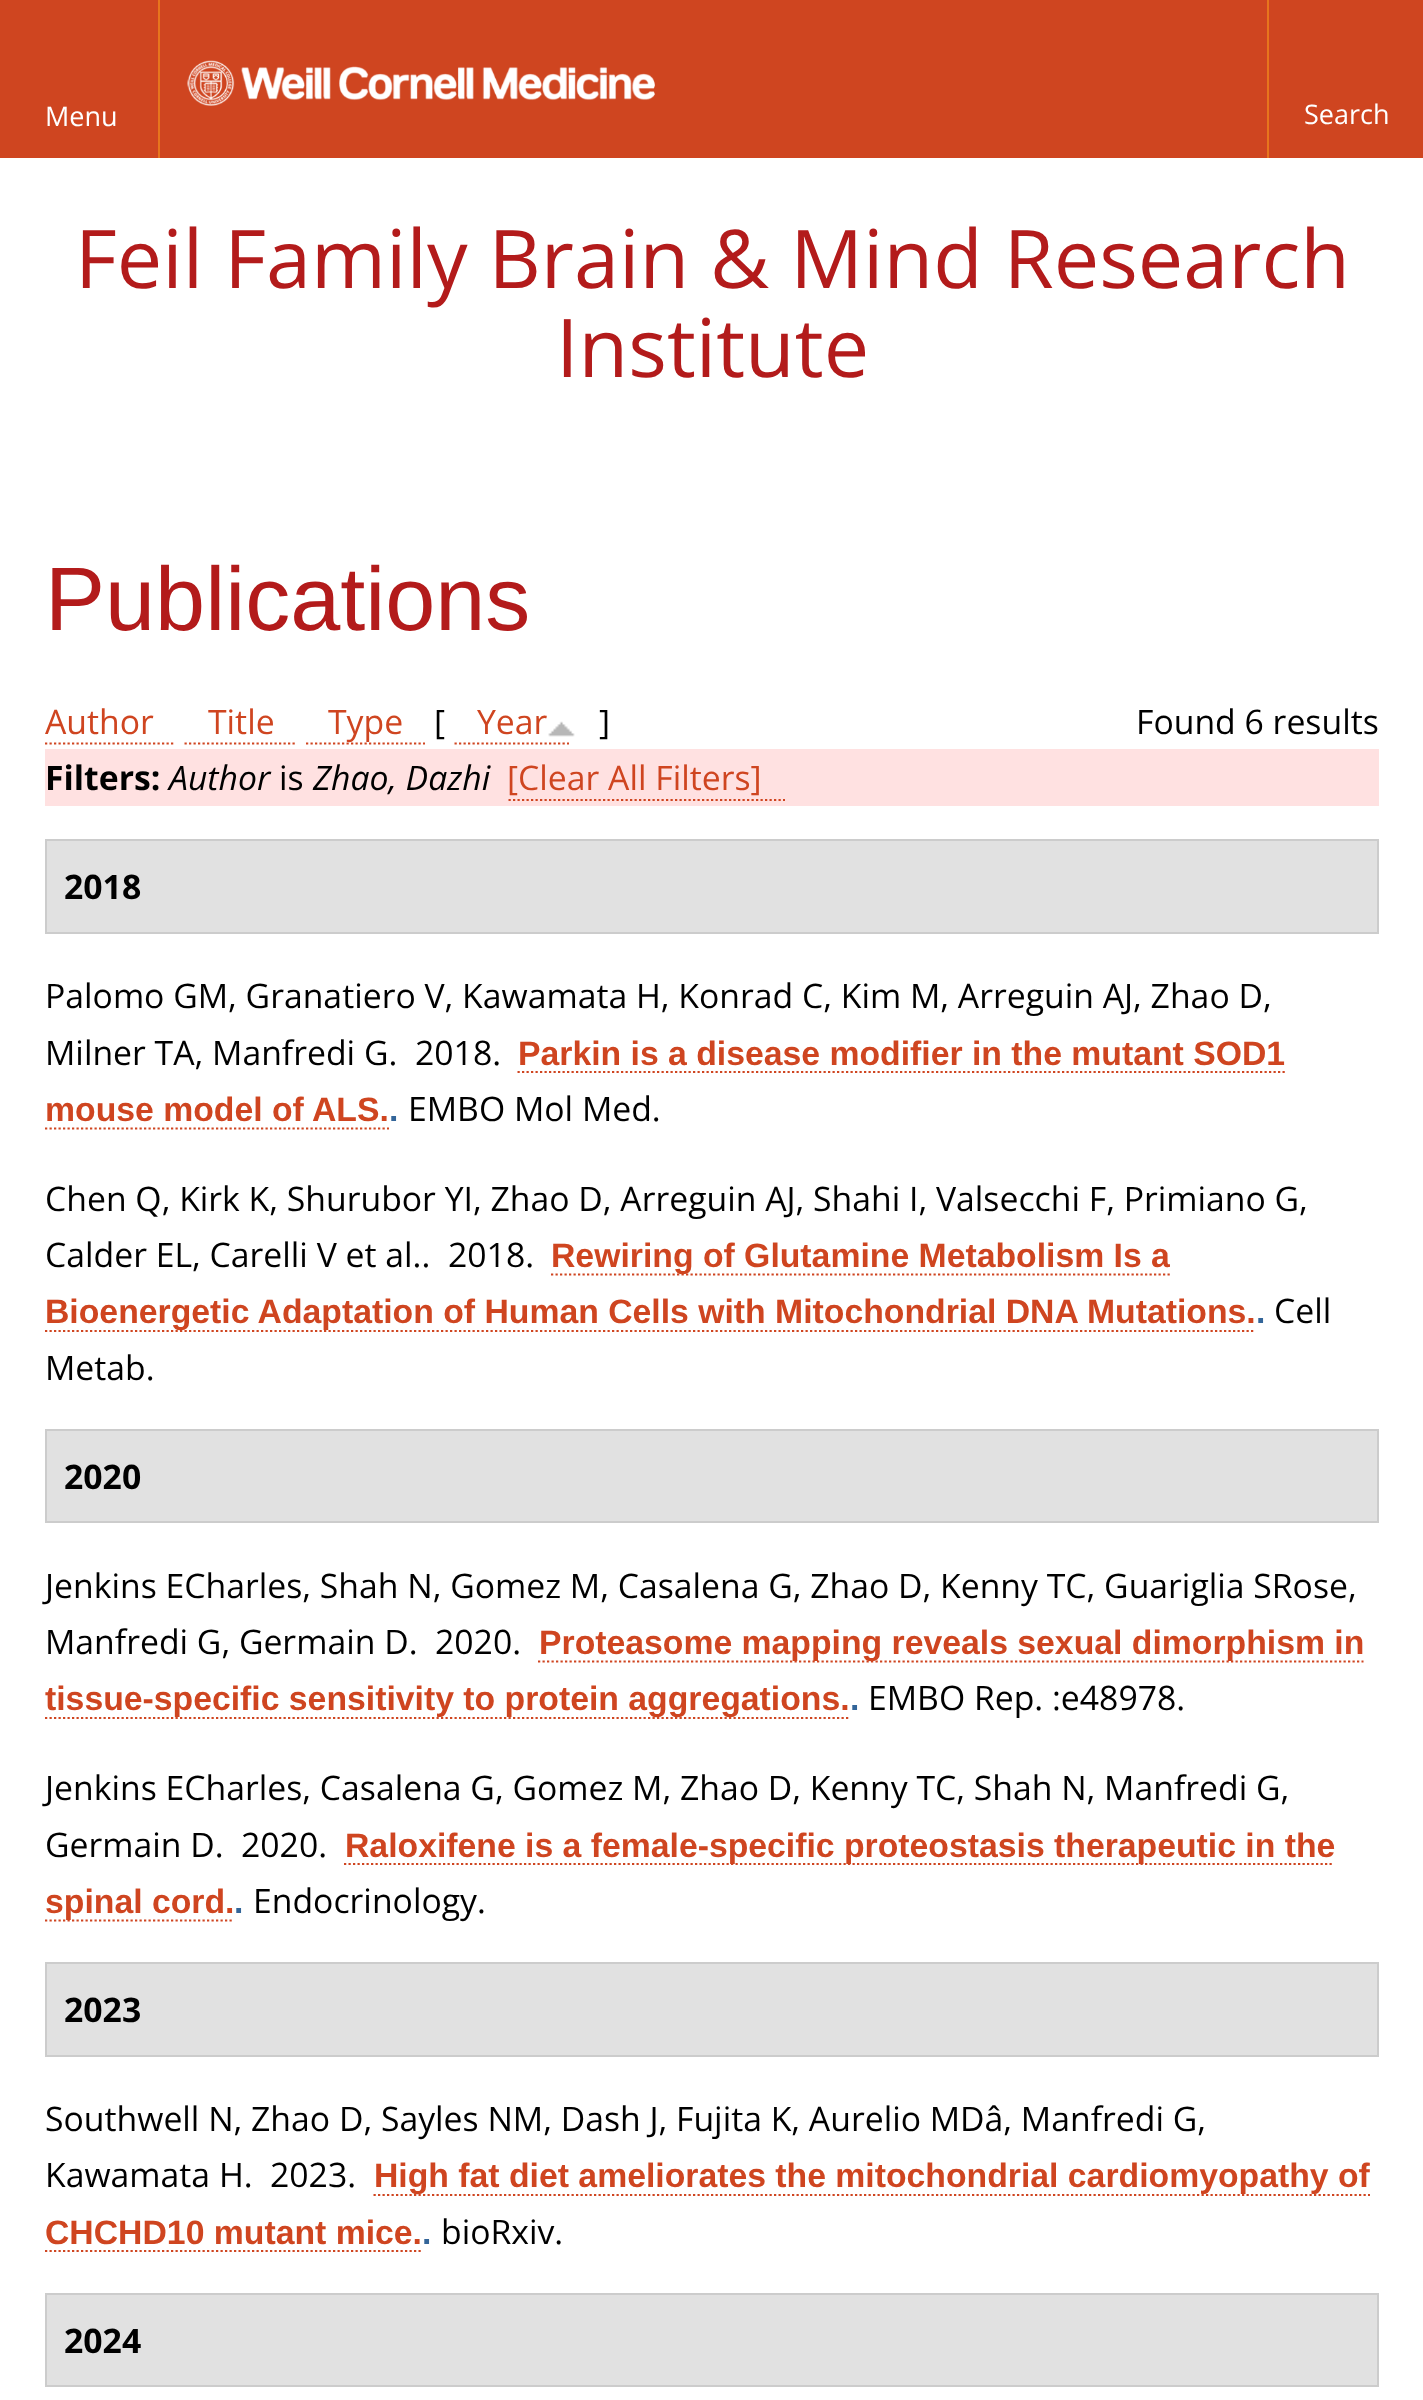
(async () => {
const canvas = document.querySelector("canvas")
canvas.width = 1423
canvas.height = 2400
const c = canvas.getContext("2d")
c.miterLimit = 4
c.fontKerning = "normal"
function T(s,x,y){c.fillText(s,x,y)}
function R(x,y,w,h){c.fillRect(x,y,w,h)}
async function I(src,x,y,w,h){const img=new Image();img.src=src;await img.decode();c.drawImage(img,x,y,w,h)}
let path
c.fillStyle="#fff"
R(0,0,1423,2400)
c.fillStyle="#cf4520"
R(0,0,1423,158)
await I("1.png",187,60,468,46)
c.fillStyle="#e7751d"
R(158,0,2,158)
c.font="27px Open Sans"
c.fillStyle="#fff"
T("Menu",45,126)
c.fillStyle="#e7751d"
R(1267,0,2,158)
c.fillStyle="#fff"
T("Search",1304,124)
c.font="81px Open Sans"
c.fillStyle="#b31b1b"
T("Feil Family Brain & Mind Research",75,288)
T("Institute",556,377)
c.font="90px Liberation Sans"
T("Publications",45,630)
c.font="33.75px Open Sans"
c.fillStyle="#cf4520"
T("Author",45,734)
path = new Path2D("M45 743.5h130.5")
c.strokeStyle="#cf4520"
c.lineWidth=2.2
c.setLineDash([2.25,2.25])
c.stroke(path)
T("Title",208,734)
path = new Path2D("M184.5 743.5h112.5")
c.stroke(path)
path = new Path2D("M306 743.5h119")
c.stroke(path)
T("Type",328,734)
c.fillStyle="#000"
T("[",434,734)
c.fillStyle="#cf4520"
T("Year",477,734)
path = new Path2D("M454.5 743.5h114.5")
c.stroke(path)
await I("2.png",548,721,27,16)
c.fillStyle="#000"
T("]",599,734)
T("Found 6 results",1136,734)
c.fillStyle="#ffe1e1"
R(45,749,1334,57)
c.font="bold 33.75px Open Sans"
c.fillStyle="#000"
T("Filters:",45,790)
c.font="italic 33.75px Open Sans"
T("Author",169,790)
c.font="33.75px Open Sans"
T("is",279,790)
c.font="italic 33.75px Open Sans"
T("Zhao, Dazhi",313,790)
c.font="33.75px Open Sans"
c.fillStyle="#cf4520"
T("[Clear All Filters]",507,790)
path = new Path2D("M508.5 800h276.5")
c.stroke(path)
c.fillStyle="#e1e1e1"
c.beginPath()
c.rect(46,840,1332,93)
c.fill()
c.strokeStyle="#ccc"
c.lineWidth=2
c.setLineDash([])
c.stroke()
c.font="bold 33.75px Open Sans"
c.fillStyle="#000"
T("2018",64,899)
c.font="33.75px Open Sans"
T("Palomo GM, Granatiero V, Kawamata H, Konrad C, Kim M, Arreguin AJ, Zhao D,",45,1008)
T("Milner TA, Manfredi G.",45,1065)
T("2018.",415,1065)
c.font="bold 33.75px Liberation Sans"
c.fillStyle="#cf4520"
T("Parkin is a disease modifier in the mutant SOD1",518,1065)
path = new Path2D("M517.5 1072h767.5")
c.strokeStyle="#cf4520"
c.lineWidth=2.2
c.setLineDash([2.25,2.25])
c.stroke(path)
T("mouse model of ALS.",45,1121)
c.fillStyle="#336599"
T(".",389,1121)
path = new Path2D("M45 1128.5h344")
c.stroke(path)
c.font="33.75px Open Sans"
c.fillStyle="#000"
T("EMBO Mol Med.",408,1121)
T("Chen Q, Kirk K, Shurubor YI, Zhao D, Arreguin AJ, Shahi I, Valsecchi F, Primiano G,",45,1211)
T("Calder EL, Carelli V et al..",45,1267)
T("2018.",448,1267)
path = new Path2D("M551 1274.5h619")
c.stroke(path)
c.font="bold 33.75px Liberation Sans"
c.fillStyle="#cf4520"
T("Rewiring of Glutamine Metabolism Is a",551,1267)
path = new Path2D("M45 1331h1210.5")
c.stroke(path)
T("Bioenergetic Adaptation of Human Cells with Mitochondrial DNA Mutations.",45,1323)
c.fillStyle="#336599"
T(".",1256,1323)
c.font="33.75px Open Sans"
c.fillStyle="#000"
T("Cell",1274,1323)
T("Metab.",45,1380)
c.fillStyle="#e1e1e1"
c.beginPath()
c.rect(46,1430,1332,92)
c.fill()
c.strokeStyle="#ccc"
c.lineWidth=2
c.setLineDash([])
c.stroke()
c.font="bold 33.75px Open Sans"
c.fillStyle="#000"
T("2020",64,1489)
c.font="33.75px Open Sans"
T("Jenkins ECharles, Shah N, Gomez M, Casalena G, Zhao D, Kenny TC, Guariglia SRose,",45,1598)
T("Manfredi G, Germain D.",45,1654)
T("2020.",435,1654)
path = new Path2D("M538 1661.5h825.5")
c.strokeStyle="#cf4520"
c.lineWidth=2.2
c.setLineDash([2.25,2.25])
c.stroke(path)
c.font="bold 33.75px Liberation Sans"
c.fillStyle="#cf4520"
T("Proteasome mapping reveals sexual dimorphism in",539,1654)
path = new Path2D("M45 1718h805.5")
c.stroke(path)
T("tissue-specific sensitivity to protein aggregations.",45,1710)
c.fillStyle="#336599"
T(".",850,1710)
c.font="33.75px Open Sans"
c.fillStyle="#000"
T("EMBO Rep. :e48978.",868,1710)
T("Jenkins ECharles, Casalena G, Gomez M, Zhao D, Kenny TC, Shah N, Manfredi G,",45,1800)
T("Germain D.",45,1857)
T("2020.",241,1857)
path = new Path2D("M344 1864h990")
c.stroke(path)
c.font="bold 33.75px Liberation Sans"
c.fillStyle="#cf4520"
T("Raloxifene is a female-specific proteostasis therapeutic in the",345,1857)
path = new Path2D("M45 1920.5h189")
c.stroke(path)
T("spinal cord.",45,1913)
c.fillStyle="#336599"
T(".",234,1913)
c.font="33.75px Open Sans"
c.fillStyle="#000"
T("Endocrinology.",253,1913)
c.fillStyle="#e1e1e1"
c.beginPath()
c.rect(46,1963,1332,93)
c.fill()
c.strokeStyle="#ccc"
c.lineWidth=2
c.setLineDash([])
c.stroke()
c.font="bold 33.75px Open Sans"
c.fillStyle="#000"
T("2023",64,2022)
c.font="33.75px Open Sans"
T("Southwell N, Zhao D, Sayles NM, Dash J, Fujita K, Aurelio MDâ, Manfredi G,",45,2131)
T("Kawamata H.",45,2187)
T("2023.",270,2187)
path = new Path2D("M373.5 2195h996.5")
c.strokeStyle="#cf4520"
c.lineWidth=2.2
c.setLineDash([2.25,2.25])
c.stroke(path)
c.font="bold 33.75px Liberation Sans"
c.fillStyle="#cf4520"
T("High fat diet ameliorates the mitochondrial cardiomyopathy of",374,2187)
T("CHCHD10 mutant mice.",45,2244)
c.fillStyle="#336599"
T(".",422,2244)
path = new Path2D("M45 2251h378")
c.stroke(path)
c.font="33.75px Open Sans"
c.fillStyle="#000"
T("bioRxiv.",441,2244)
c.fillStyle="#e1e1e1"
c.beginPath()
c.rect(46,2294,1332,92)
c.fill()
c.strokeStyle="#ccc"
c.lineWidth=2
c.setLineDash([])
c.stroke()
c.font="bold 33.75px Open Sans"
c.fillStyle="#000"
T("2024",64,2353)
})()
